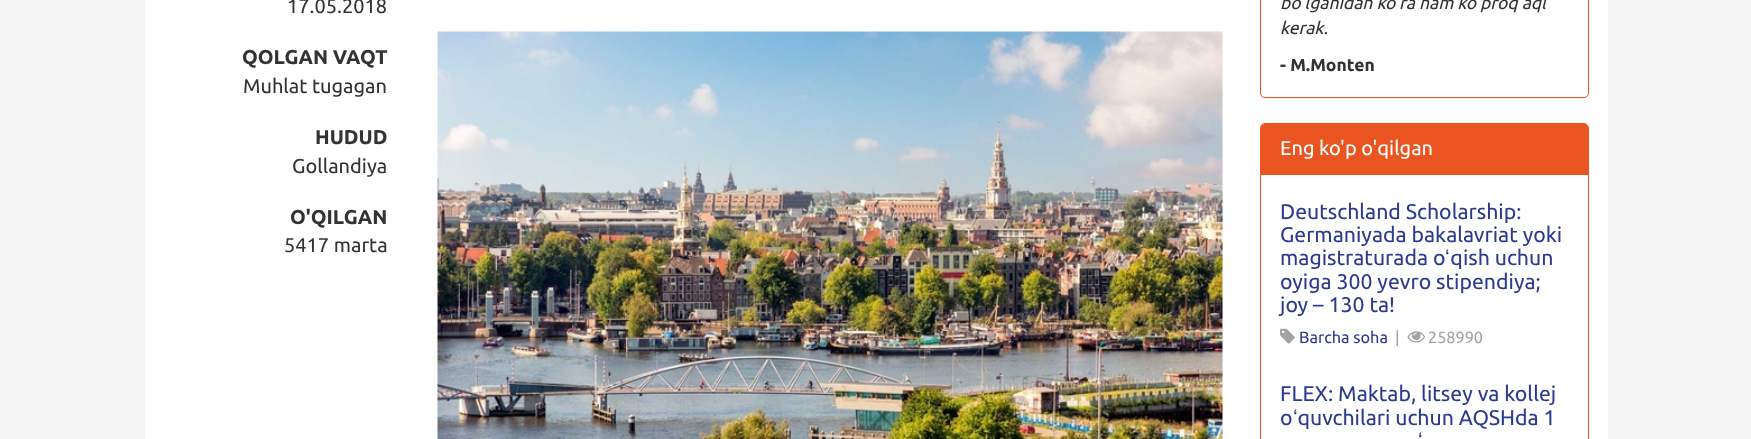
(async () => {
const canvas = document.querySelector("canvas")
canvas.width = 1751
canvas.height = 439
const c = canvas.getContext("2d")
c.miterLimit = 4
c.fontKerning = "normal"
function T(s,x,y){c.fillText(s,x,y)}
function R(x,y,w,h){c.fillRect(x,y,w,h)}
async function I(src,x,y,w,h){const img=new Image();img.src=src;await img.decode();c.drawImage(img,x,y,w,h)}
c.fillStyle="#f5f5f5"
R(0,0,1751,439)
c.fillStyle="#fff"
R(145,0,1463,439)
c.font="20px Ubuntu"
c.fillStyle="#333"
T("17.05.2018",287,13)
c.font="bold 20px Ubuntu"
T("QOLGAN VAQT",242,64)
c.font="20px Ubuntu"
T("Muhlat tugagan",243,93)
c.font="bold 20px Ubuntu"
T("HUDUD",315,144)
c.font="20px Ubuntu"
T("Gollandiya",292,173)
c.font="bold 20px Ubuntu"
T("O'QILGAN",290,224)
c.font="20px Ubuntu"
T("5417 marta",284,252)
await I("1.png",437,31,786,408)
c.fillStyle="#0000000d"
c.filter="blur(0.5px)"
c.beginPath()
c.roundRect(1260,-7,329,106,5)
c.fill()
c.filter="none"
c.fillStyle="#fff"
c.beginPath()
c.roundRect(1260.5,-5.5,328,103,4.5)
c.fill()
c.strokeStyle="#e95420"
c.stroke()
c.font="italic 17.5px Ubuntu"
c.fillStyle="#333"
T("bo‘lganidan ko‘ra ham ko‘proq aql",1280,9)
T("kerak.",1280,34)
c.font="bold 17.5px Ubuntu"
T("- M.Monten",1280,71)
c.beginPath()
c.roundRect(1260.5,123.5,328,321,4.5)
c.stroke()
c.fillStyle="#e95420"
c.beginPath()
c.roundRect(1261,124,327,51,[4,4,0,0])
c.fill()
c.font="20px Ubuntu"
c.fillStyle="#fff"
T("Eng ko'p o'qilgan",1280,155)
c.font="21.25px Ubuntu"
c.fillStyle="#2c3b8e"
T("Deutschland Scholarship:",1280,219)
T("Germaniyada bakalavriat yoki",1280,242)
T("magistraturada o qish uchun",1280,265)
c.font="21.25px Liberation Sans"
T("ʻ",1445,265)
c.font="21.25px Ubuntu"
T("oyiga 300 yevro stipendiya;",1280,289)
T("joy – 130 ta!",1280,312)
await I("2.png",1280,328,15,16)
c.font="16.25px Ubuntu"
T("Barcha soha",1299,343)
c.fillStyle="#a7a2a2"
T("|",1395,343)
await I("3.png",1407,331,18,12)
T("258990",1428,343)
c.font="21.25px Ubuntu"
c.fillStyle="#2c3b8e"
T("FLEX: Maktab, litsey va kollej",1280,401)
T("o quvchilari uchun AQSHda 1",1280,425)
c.font="21.25px Liberation Sans"
T("ʻ",1293,425)
T("ʻ",1418,448)
})()
